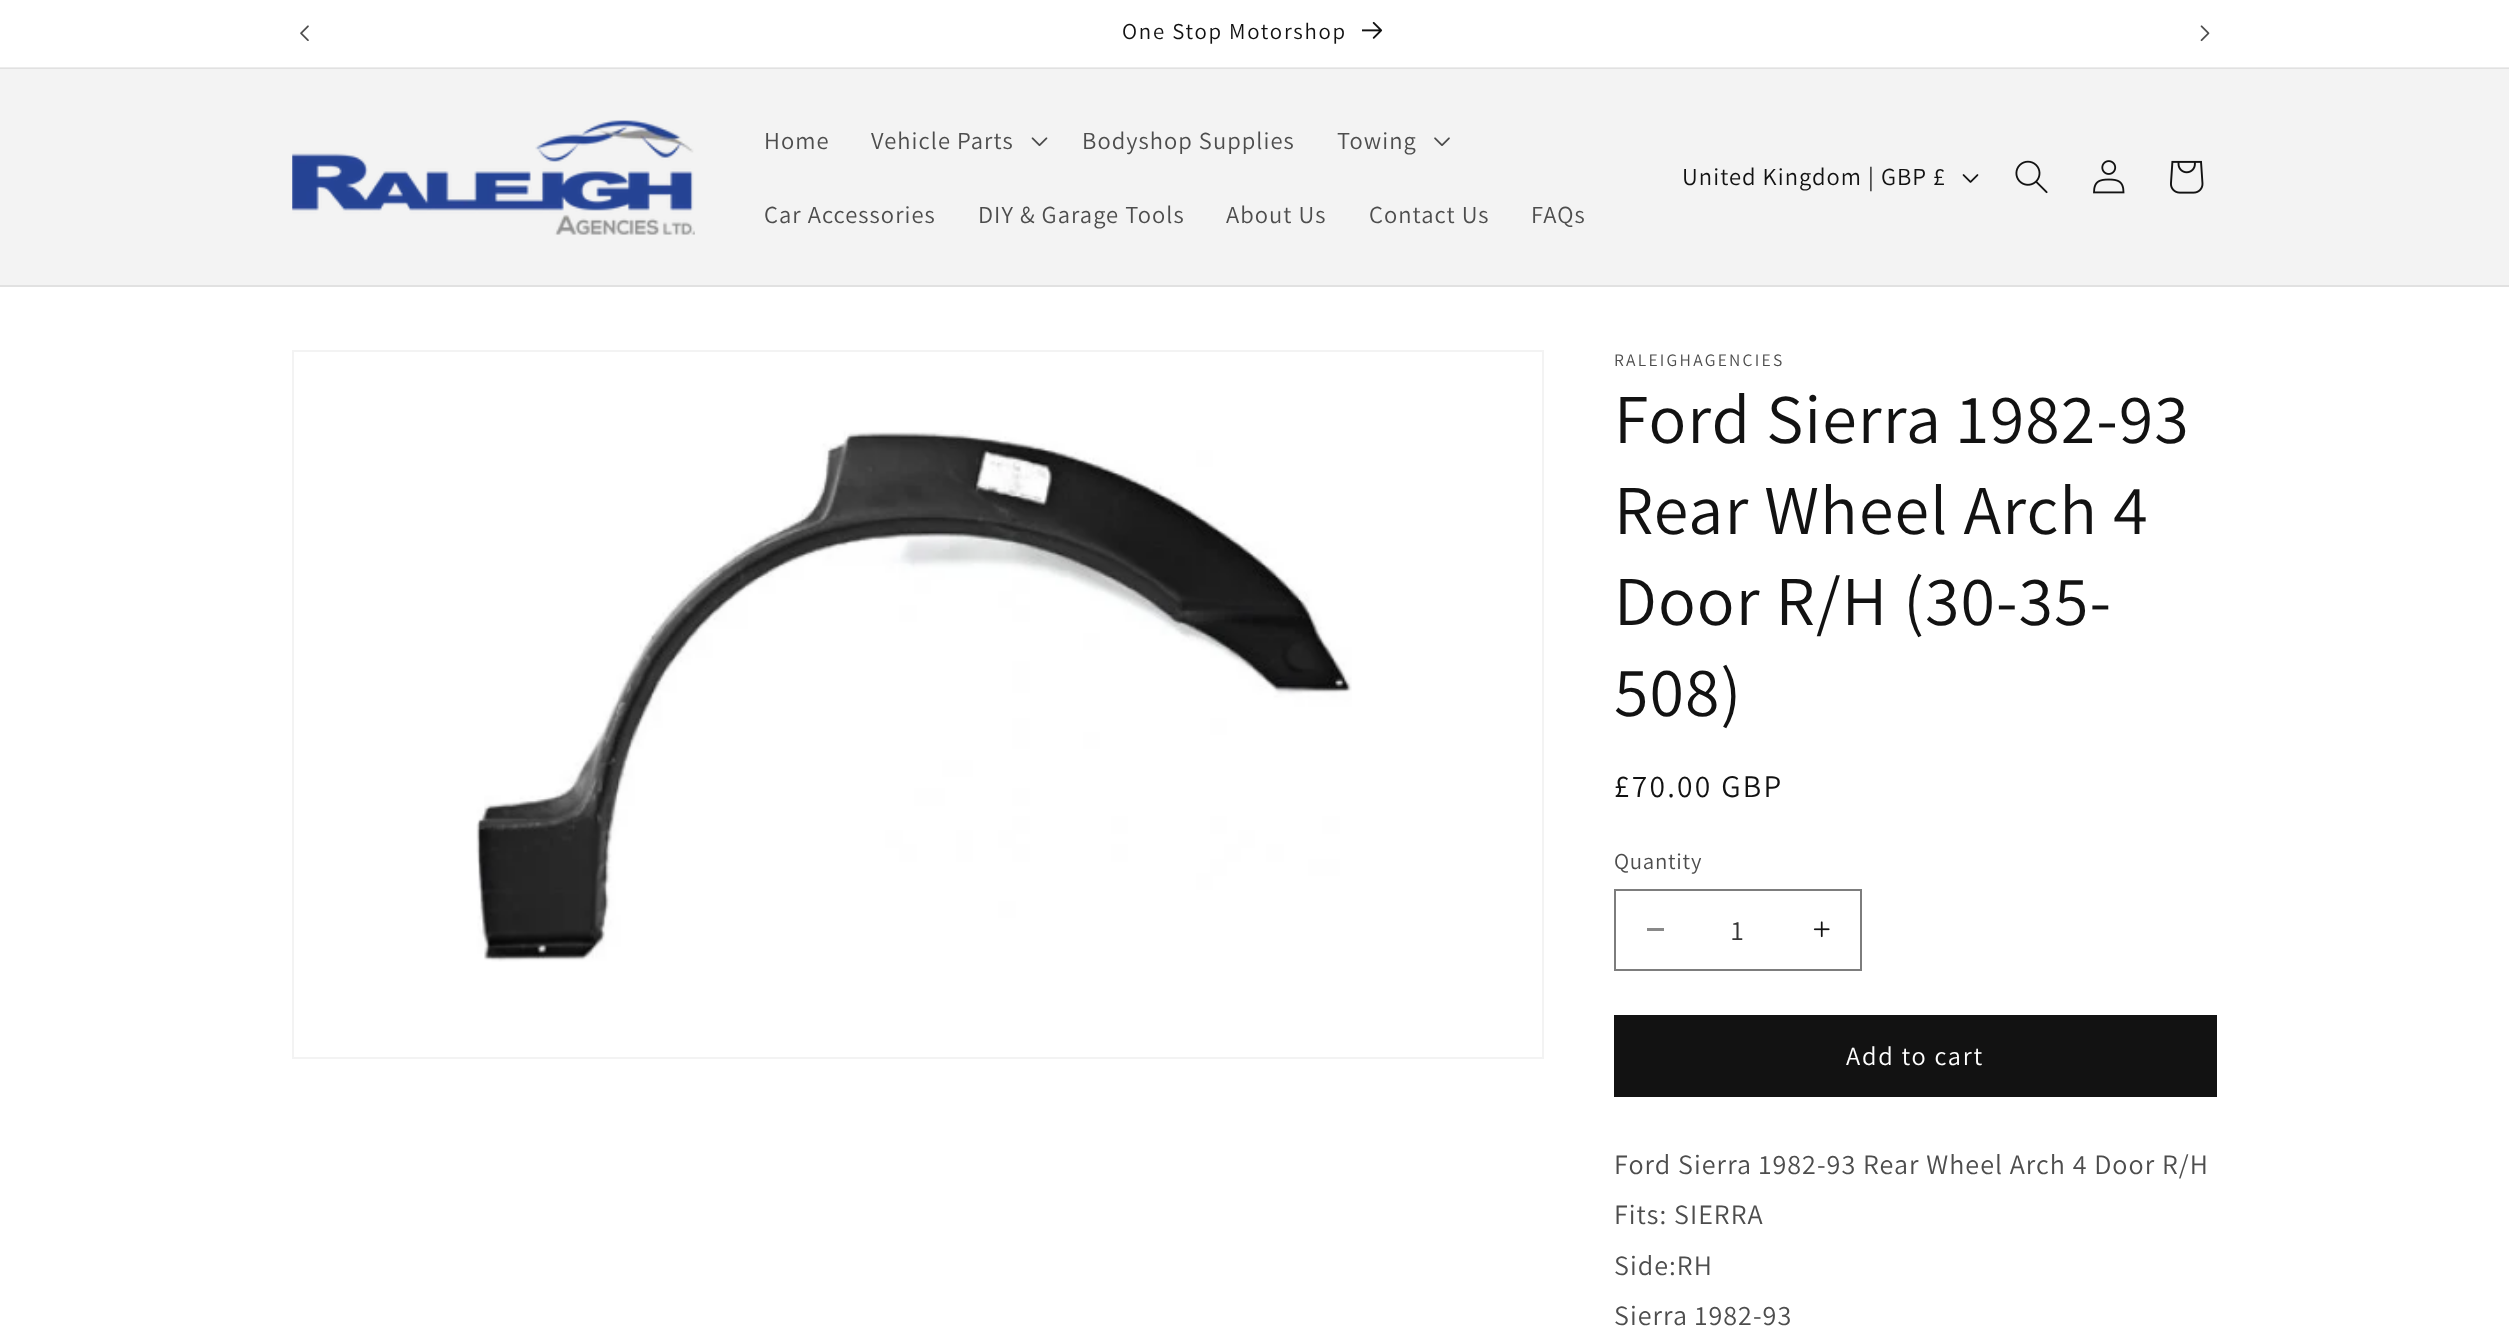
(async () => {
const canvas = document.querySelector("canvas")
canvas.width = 2509
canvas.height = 1342
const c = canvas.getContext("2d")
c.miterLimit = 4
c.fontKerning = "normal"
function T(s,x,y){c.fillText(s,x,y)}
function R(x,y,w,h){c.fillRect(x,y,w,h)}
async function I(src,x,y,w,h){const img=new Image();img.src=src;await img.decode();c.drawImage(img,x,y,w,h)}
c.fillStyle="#fff"
R(0,0,2509,1342)
c.fillStyle="#ececec"
R(0,67,2509,1)
await I("1.png",300,25,9,16)
c.letterSpacing="1.75px"
c.font="22.75px Assistant"
c.fillStyle="#121212"
T("One Stop Motorshop",1122,39)
await I("2.png",1362,21,21,18)
await I("3.png",2200,25,10,17)
c.fillStyle="#f3f3f3"
R(0,69,2509,216)
c.fillStyle="#e1e1e1"
R(0,68,2509,1)
R(0,285,2509,2)
await I("4.png",292,120,403,115)
c.letterSpacing="1.05px"
c.font="24.5px Assistant"
c.fillStyle="#4d4d4d"
T("Home",764,149)
T("Vehicle Parts",871,149)
await I("5.png",1031,137,17,10)
T("Bodyshop Supplies",1082,149)
T("Towing",1337,149)
await I("6.png",1434,137,16,9)
T("Car Accessories",764,223)
T("DIY & Garage Tools",978,223)
T("About Us",1226,223)
T("Contact Us",1369,223)
T("FAQs",1531,223)
c.fillStyle="#121212"
T("United Kingdom | GBP £",1682,185)
await I("7.png",1962,174,17,9)
await I("8.png",2015,160,33,34)
await I("9.png",2093,160,32,34)
await I("10.png",2170,160,34,34)
c.strokeStyle="#f3f3f3"
c.lineWidth=2
c.strokeRect(293,351,1250,707)
await I("11.png",476,430,876,532)
c.letterSpacing="2.25px"
c.font="17.5px Assistant"
c.fillStyle="#4d4d4d"
T("RALEIGHAGENCIES",1614,366)
c.letterSpacing="1.05px"
c.font="70px Assistant"
c.fillStyle="#121212"
T("Ford Sierra 1982-93",1614,443)
T("Rear Wheel Arch 4",1614,534)
T("Door R/H (30-35-",1614,625)
T("508)",1614,716)
c.letterSpacing="2.25px"
c.font="31.5px Assistant"
T("£70.00 GBP",1614,797)
c.letterSpacing="0.75px"
c.font="22.75px Assistant"
c.fillStyle="#4d4d4d"
T("Quantity",1614,869)
c.fillStyle="#898989"
R(1647,928,17,3)
await I("12.png",1813,921,17,17)
c.strokeStyle="#7d7d7d"
c.strokeRect(1615,890,246,80)
c.letterSpacing="0px"
c.font="28px Assistant"
c.fillStyle="#363636"
T("1",1731,940)
c.fillStyle="#121212"
R(1614,1015,603,82)
c.letterSpacing="1.75px"
c.font="26.25px Assistant"
c.fillStyle="#fff"
T("Add to cart",1846,1065)
c.letterSpacing="1.05px"
c.font="28px Assistant"
c.fillStyle="#4d4d4d"
T("Ford Sierra 1982-93 Rear Wheel Arch 4 Door R/H",1614,1174)
T("Fits: SIERRA",1614,1224)
T("Side:RH",1614,1275)
T("Sierra 1982-93",1614,1325)
})()
